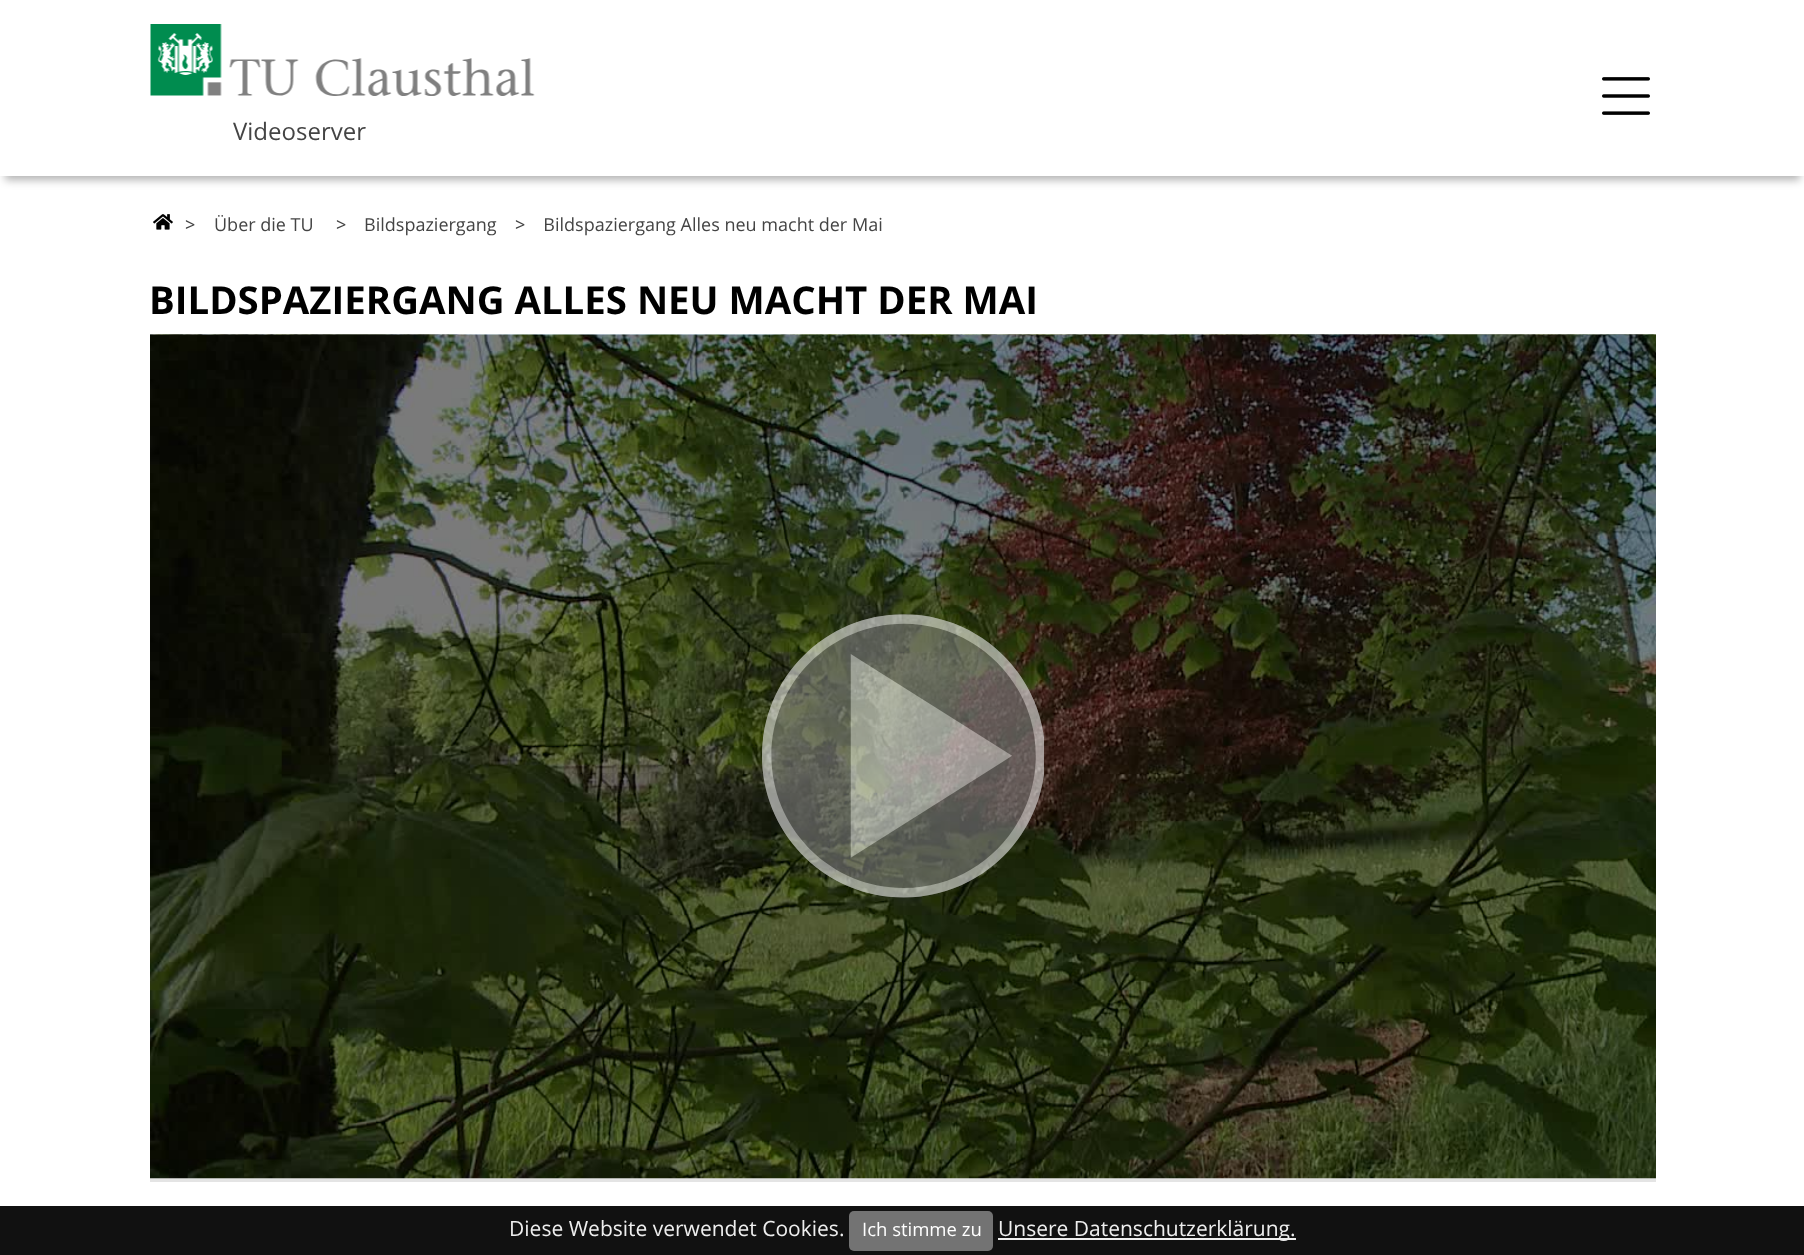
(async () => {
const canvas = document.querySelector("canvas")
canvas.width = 1804
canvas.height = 1255
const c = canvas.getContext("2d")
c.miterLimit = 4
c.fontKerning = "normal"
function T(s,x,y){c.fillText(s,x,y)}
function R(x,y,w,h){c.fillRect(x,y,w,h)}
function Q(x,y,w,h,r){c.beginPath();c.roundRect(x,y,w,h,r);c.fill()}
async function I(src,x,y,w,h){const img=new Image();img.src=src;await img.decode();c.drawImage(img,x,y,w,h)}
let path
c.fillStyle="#fff"
R(0,0,1804,1255)
c.save()
path = new Path2D("M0 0h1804v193h-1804zm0 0h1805v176h-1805z")
c.clip(path,"evenodd")
c.fillStyle="#0000004d"
c.filter="blur(4px)"
c.beginPath()
c.rect(5,12,1795,168)
c.fill()
c.filter="none"
c.restore()
c.fillStyle="#fffffff5"
R(0,175,1804,1)
await I("1.png",150,24,385,72)
await I("2.png",1602,77,48,38)
c.font="24px Open Sans"
c.fillStyle="#444"
T("Videoserver",233,140)
await I("3.png",153,214,20,16)
c.font="18px Open Sans"
T(">",185,231)
T("Über die TU",214,231)
T(">",336,231)
T("Bildspaziergang",364,231)
T(">  Bildspaziergang Alles neu macht der Mai",515,231)
c.font="bold 38.4px Open Sans"
c.fillStyle="#000"
T("BILDSPAZIERGANG ALLES NEU MACHT DER MAI",149,314)
await I("4.png",150,334,1506,1)
await I("5.png",150,334,1506,848)
c.fillStyle="#111"
R(0,1206,1804,49)
c.font="21px Open Sans"
c.fillStyle="#eee"
T("Diese Website verwendet Cookies.",509,1236)
c.fillStyle="#737373"
Q(849,1211,144,40,5)
c.font="18.5px Open Sans"
c.fillStyle="#fff"
T("Ich stimme zu",862,1236)
c.fillStyle="#eee"
R(998,1238,298,2)
c.font="21px Open Sans"
T("Unsere Datenschutzerklärung.",998,1236)
})()
